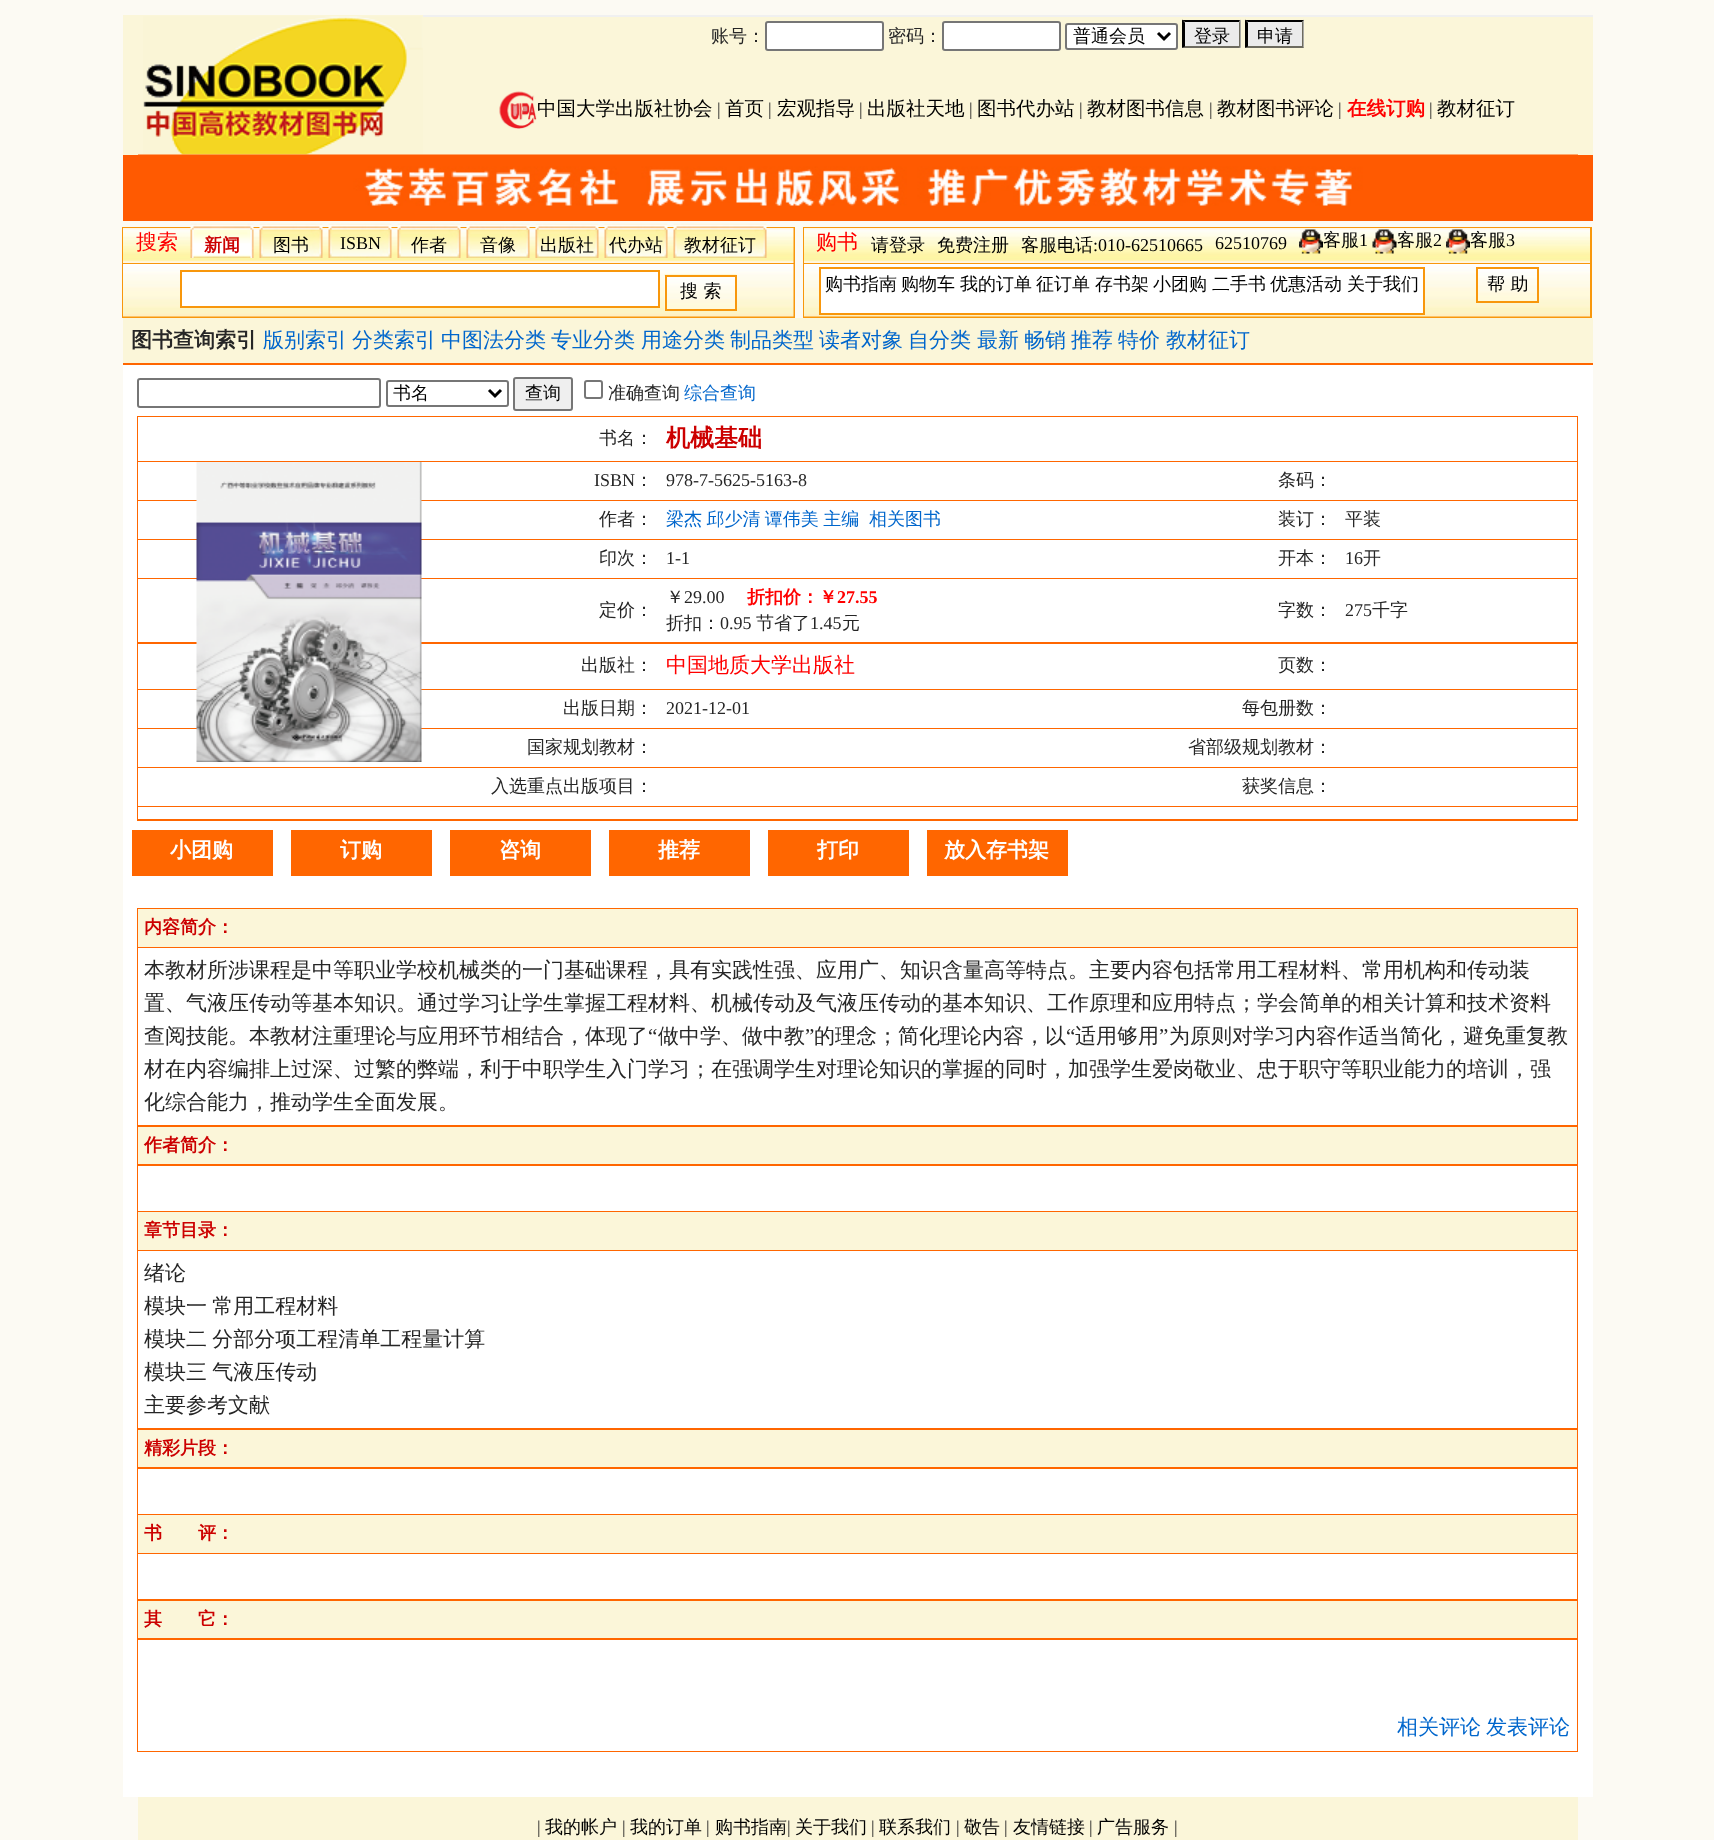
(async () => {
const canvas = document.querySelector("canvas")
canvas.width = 1714
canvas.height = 1840
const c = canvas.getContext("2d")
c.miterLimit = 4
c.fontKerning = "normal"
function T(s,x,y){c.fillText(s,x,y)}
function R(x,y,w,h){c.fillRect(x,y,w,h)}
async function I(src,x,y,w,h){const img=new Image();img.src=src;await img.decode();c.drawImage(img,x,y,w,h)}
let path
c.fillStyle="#fcfaf3"
R(0,0,1714,1840)
c.fillStyle="#fbf6d9"
R(123,15,1470,140)
await I("1.png",143,16,280,139)
c.fillStyle="#f0f0f0"
R(423,15,1170,2)
c.font="500 18px WenQuanYi Zen Hei"
c.fillStyle="#262626"
T("账号：",711,42)
c.fillStyle="#fff"
c.beginPath()
c.roundRect(766,22,117,28,2)
c.fill()
c.strokeStyle="#767676"
c.lineWidth=2
c.stroke()
c.fillStyle="#262626"
T("密码：",888,42)
c.fillStyle="#fff"
c.beginPath()
c.roundRect(943,22,117,28,2)
c.fill()
c.stroke()
c.beginPath()
c.roundRect(1066,24,111,25,2)
c.fill()
c.stroke()
path = new Path2D("M1158 33l6 6l6-6")
c.strokeStyle="#000"
c.lineWidth=3
c.stroke(path)
c.fillStyle="#000"
T("普通会员",1073,42)
c.fillStyle="#ebebeb"
R(1182,20,59,28)
c.fillStyle="#000"
path = new Path2D("M1182 20h58l-1 2h-54z")
c.fill(path)
c.fillStyle="#6d6b5f"
path = new Path2D("M1240.5 19.5v28.5l-1.5-1.5v-24z")
c.fill(path)
path = new Path2D("M1240 48h-58l3-2h54z")
c.fill(path)
c.fillStyle="#000"
path = new Path2D("M1182 48v-28.5l3 3v24z")
c.fill(path)
T("登录",1194,42)
c.fillStyle="#ebebeb"
R(1245,20,59,28)
c.fillStyle="#000"
path = new Path2D("M1245 20h59l-2 2h-54z")
c.fill(path)
c.fillStyle="#6d6b5f"
path = new Path2D("M1303.5 19.5v28.5l-1.5-1.5v-24z")
c.fill(path)
path = new Path2D("M1304 48h-59l3-2h54z")
c.fill(path)
c.fillStyle="#000"
path = new Path2D("M1245 48v-28.5l3 3v24z")
c.fill(path)
T("申请",1257,42)
await I("2.png",499,91,38,38)
c.font="500 19.5px WenQuanYi Zen Hei"
T("中国大学出版社协会",537,115)
c.font="18px Liberation Serif"
c.fillStyle="#262626"
T("|",717,115)
c.font="500 19.5px WenQuanYi Zen Hei"
c.fillStyle="#000"
T("首页",725,115)
c.font="18px Liberation Serif"
c.fillStyle="#262626"
T("|",768,115)
c.font="500 19.5px WenQuanYi Zen Hei"
c.fillStyle="#000"
T("宏观指导",777,115)
c.font="18px Liberation Serif"
c.fillStyle="#262626"
T("|",859,115)
c.font="500 19.5px WenQuanYi Zen Hei"
c.fillStyle="#000"
T("出版社天地",867,115)
c.font="18px Liberation Serif"
c.fillStyle="#262626"
T("|",969,115)
c.font="500 19.5px WenQuanYi Zen Hei"
c.fillStyle="#000"
T("图书代办站",977,115)
c.font="18px Liberation Serif"
c.fillStyle="#262626"
T("|",1079,115)
c.font="500 19.5px WenQuanYi Zen Hei"
c.fillStyle="#000"
T("教材图书信息",1087,115)
c.font="18px Liberation Serif"
c.fillStyle="#262626"
T("|",1209,115)
c.font="500 19.5px WenQuanYi Zen Hei"
c.fillStyle="#000"
T("教材图书评论",1217,115)
c.font="18px Liberation Serif"
c.fillStyle="#262626"
T("|",1338,115)
c.font="bold 19.5px WenQuanYi Zen Hei"
c.fillStyle="#f00"
T("在线订购",1347,115)
c.font="18px Liberation Serif"
c.fillStyle="#262626"
T("|",1429,115)
c.font="500 19.5px WenQuanYi Zen Hei"
c.fillStyle="#000"
T("教材征订",1437,115)
c.fillStyle="#ff5a01"
R(123,155,1470,66)
await I("3.png",138,154,1440,52)
c.strokeStyle="#f8970c"
c.lineWidth=2
c.strokeRect(123,228,671,89)
await I("4.png",123,228,671,35)
c.fillStyle="#f8970c"
R(123,263,671,2)
c.font="500 21px WenQuanYi Zen Hei"
c.fillStyle="#f00"
T("搜索",136,249)
await I("5.png",190,223,64,35)
c.font="bold 18px WenQuanYi Zen Hei"
c.fillStyle="#c00"
T("新闻",204,251)
await I("6.png",259,223,64,35)
c.font="500 18px WenQuanYi Zen Hei"
c.fillStyle="#000"
T("图书",273,251)
await I("6.png",328,223,64,35)
c.font="18px Liberation Serif"
T("ISBN",340,249)
await I("7.png",397,223,64,35)
c.font="500 18px WenQuanYi Zen Hei"
T("作者",411,251)
await I("8.png",466,223,64,35)
T("音像",480,251)
await I("9.png",535,223,64,35)
T("出版社",540,251)
await I("10.png",604,223,64,35)
T("代办站",609,251)
await I("11.png",673,223,94,35)
T("教材征订",684,251)
await I("12.png",123,264,671,53)
c.fillStyle="#fff"
c.beginPath()
c.rect(181,271,478,36)
c.fill()
c.stroke()
await I("13.png",664,274,73,37)
c.strokeRect(666,276,70,34)
c.fillStyle="#000"
T("搜 索",680,297)
c.strokeRect(804,228,787,89)
await I("14.png",804,228,786,35)
c.fillStyle="#f8970c"
R(804,263,786,1)
c.font="500 21px WenQuanYi Zen Hei"
c.fillStyle="#f00"
T("购书",816,249)
c.font="500 18px WenQuanYi Zen Hei"
c.fillStyle="#000"
T("请登录",871,251)
T("免费注册",937,251)
T("客服电话",1021,251)
c.font="18px Liberation Serif"
T(":010-62510665",1093,251)
T("62510769",1215,249)
await I("15.png",1299,229,24,25)
c.font="500 18px WenQuanYi Zen Hei"
T("客服",1323,246)
c.font="18px Liberation Serif"
T("1",1359,246)
await I("16.png",1372,229,25,25)
c.font="500 18px WenQuanYi Zen Hei"
T("客服",1397,246)
c.font="18px Liberation Serif"
T("2",1433,246)
await I("15.png",1446,229,24,25)
c.font="500 18px WenQuanYi Zen Hei"
T("客服",1470,246)
c.font="18px Liberation Serif"
T("3",1506,246)
await I("17.png",804,264,786,53)
c.fillStyle="#fff"
c.beginPath()
c.rect(820,268,604,46)
c.fill()
c.stroke()
c.font="500 18px WenQuanYi Zen Hei"
c.fillStyle="#000"
T("购书指南",825,290)
T("购物车",901,290)
T("我的订单",960,290)
T("征订单",1036,290)
T("存书架",1095,290)
T("小团购",1153,290)
T("二手书",1212,290)
T("优惠活动",1270,290)
T("关于我们",1347,290)
await I("18.png",1478,269,59,32)
c.strokeRect(1477,268,61,34)
T("帮 助",1487,290)
c.fillStyle="#fff"
R(123,365,1470,1432)
c.fillStyle="#fbf6d9"
R(123,318,1470,45)
c.fillStyle="#f60"
R(123,363,1470,2)
c.font="bold 21px WenQuanYi Zen Hei"
c.fillStyle="#262626"
T("图书查询索引",131,347)
c.font="500 21px WenQuanYi Zen Hei"
c.fillStyle="#06c"
T("版别索引",263,347)
T("分类索引",352,347)
T("中图法分类",441,347)
T("专业分类",551,347)
T("用途分类",641,347)
T("制品类型",730,347)
T("读者对象",819,347)
T("自分类",908,347)
T("最新",977,347)
T("畅销",1024,347)
T("推荐",1071,347)
T("特价",1118,347)
T("教材征订",1166,347)
c.beginPath()
c.roundRect(138,379,242,28,2)
c.strokeStyle="#767676"
c.stroke()
c.beginPath()
c.roundRect(387,381,121,25,2)
c.stroke()
path = new Path2D("M489 390l6 6l6-6")
c.strokeStyle="#000"
c.lineWidth=3
c.stroke(path)
c.font="500 18px WenQuanYi Zen Hei"
c.fillStyle="#000"
T("书名",393,399)
c.fillStyle="#efefef"
c.beginPath()
c.roundRect(514,378,58,32,2)
c.fill()
c.strokeStyle="#767676"
c.lineWidth=2
c.stroke()
c.fillStyle="#000"
T("查询",525,399)
c.beginPath()
c.roundRect(585,381,17,17,2)
c.stroke()
c.fillStyle="#262626"
T("准确查询",608,399)
c.fillStyle="#06c"
T("综合查询",684,399)
c.fillStyle="#f60"
R(137,416,1441,405)
c.fillStyle="#fff"
R(138,417,1439,44)
c.fillStyle="#262626"
T("书名：",599,444)
c.font="bold 24px WenQuanYi Zen Hei"
c.fillStyle="#c00"
T("机械基础",666,446)
c.fillStyle="#fff"
R(138,462,1439,38)
R(138,501,1439,38)
R(138,540,1439,38)
R(138,579,1439,63)
R(138,644,1439,45)
R(138,690,1439,38)
R(138,729,1439,38)
await I("19.png",196,462,226,300)
c.font="18px Liberation Serif"
c.fillStyle="#262626"
T("ISBN",594,486)
c.font="500 18px WenQuanYi Zen Hei"
T("：",635,486)
c.font="18px Liberation Serif"
T("978-7-5625-5163-8",666,486)
c.font="500 18px WenQuanYi Zen Hei"
T("条码：",1278,486)
T("作者：",599,525)
c.wordSpacing="-1px"
c.fillStyle="#06c"
T("梁杰 邱少清 谭伟美 主编",666,525)
c.wordSpacing="0px"
T("相关图书",869,525)
c.fillStyle="#262626"
T("装订：",1278,525)
T("平装",1345,525)
T("印次：",599,564)
c.font="18px Liberation Serif"
T("1-1",666,564)
c.font="500 18px WenQuanYi Zen Hei"
T("开本：",1278,564)
c.font="18px Liberation Serif"
T("16",1345,564)
c.font="500 18px WenQuanYi Zen Hei"
T("开",1363,564)
T("定价：",599,616)
T("￥",666,603)
c.font="18px Liberation Serif"
T("29.00",684,603)
c.font="bold 18px WenQuanYi Zen Hei"
c.fillStyle="#f00"
T("折扣价：￥",747,603)
c.font="bold 18px Liberation Serif"
T("27.55",837,603)
c.font="500 18px WenQuanYi Zen Hei"
c.fillStyle="#262626"
T("折扣：",666,629)
c.font="18px Liberation Serif"
T("0.95",720,629)
c.font="500 18px WenQuanYi Zen Hei"
T("节省了",756,629)
c.font="18px Liberation Serif"
T("1.45",810,629)
c.font="500 18px WenQuanYi Zen Hei"
T("元",842,629)
T("字数：",1278,616)
c.font="18px Liberation Serif"
T("275",1345,616)
c.font="500 18px WenQuanYi Zen Hei"
T("千字",1372,616)
T("出版社：",581,671)
c.font="500 21px WenQuanYi Zen Hei"
c.fillStyle="#f00"
T("中国地质大学出版社",666,672)
c.font="500 18px WenQuanYi Zen Hei"
c.fillStyle="#262626"
T("页数：",1278,671)
T("出版日期：",563,714)
c.font="18px Liberation Serif"
T("2021-12-01",666,714)
c.font="500 18px WenQuanYi Zen Hei"
T("每包册数：",1242,714)
T("国家规划教材：",527,753)
T("省部级规划教材：",1188,753)
c.fillStyle="#fff"
R(138,768,1439,38)
c.fillStyle="#262626"
T("入选重点出版项目：",491,792)
T("获奖信息：",1242,792)
c.fillStyle="#fff"
R(138,807,1439,12)
c.fillStyle="#f60"
R(132,830,141,46)
c.font="bold 21px WenQuanYi Zen Hei"
c.fillStyle="#fff"
T("小团购",170,857)
c.fillStyle="#f60"
R(291,830,141,46)
c.fillStyle="#fff"
T("订购",340,857)
c.fillStyle="#f60"
R(450,830,141,46)
c.fillStyle="#fff"
T("咨询",499,857)
c.fillStyle="#f60"
R(609,830,141,46)
c.fillStyle="#fff"
T("推荐",658,857)
c.fillStyle="#f60"
R(768,830,141,46)
c.fillStyle="#fff"
T("打印",817,857)
c.fillStyle="#f60"
R(927,830,141,46)
c.fillStyle="#fff"
T("放入存书架",944,857)
c.fillStyle="#f60"
R(137,908,1441,844)
c.fillStyle="#fbf6d9"
R(138,909,1439,38)
c.font="bold 18px WenQuanYi Zen Hei"
c.fillStyle="#c00"
T("内容简介：",144,933)
c.fillStyle="#fff"
R(138,948,1439,177)
c.font="500 21px WenQuanYi Zen Hei"
c.fillStyle="#262626"
T("本教材所涉课程是中等职业学校机械类的一门基础课程，具有实践性强、应用广、知识含量高等特点。主要内容包括常用工程材料、常用机构和传动装",144,977)
T("置、气液压传动等基本知识。通过学习让学生掌握工程材料、机械传动及气液压传动的基本知识、工作原理和应用特点；学会简单的相关计算和技术资料",144,1010)
T("查阅技能。本教材注重理论与应用环节相结合，体现了",144,1043)
c.font="21px Liberation Serif"
T("“",648,1043)
c.font="500 21px WenQuanYi Zen Hei"
T("做中学、做中教",658,1043)
c.font="21px Liberation Serif"
T("”",805,1043)
c.font="500 21px WenQuanYi Zen Hei"
T("的理念；简化理论内容，以",814,1043)
c.font="21px Liberation Serif"
T("“",1066,1043)
c.font="500 21px WenQuanYi Zen Hei"
T("适用够用",1075,1043)
c.font="21px Liberation Serif"
T("”",1159,1043)
c.font="500 21px WenQuanYi Zen Hei"
T("为原则对学习内容作适当简化，避免重复教",1169,1043)
T("材在内容编排上过深、过繁的弊端，利于中职学生入门学习；在强调学生对理论知识的掌握的同时，加强学生爱岗敬业、忠于职守等职业能力的培训，强",144,1076)
T("化综合能力，推动学生全面发展。",144,1109)
c.fillStyle="#fbf6d9"
R(138,1127,1439,37)
c.font="bold 18px WenQuanYi Zen Hei"
c.fillStyle="#c00"
T("作者简介：",144,1151)
c.fillStyle="#fff"
R(138,1166,1439,45)
c.fillStyle="#fbf6d9"
R(138,1212,1439,38)
c.fillStyle="#c00"
T("章节目录：",144,1236)
c.fillStyle="#fff"
R(138,1251,1439,177)
c.font="500 21px WenQuanYi Zen Hei"
c.fillStyle="#262626"
T("绪论",144,1280)
c.wordSpacing="-1px"
T("模块一 常用工程材料",144,1313)
T("模块二 分部分项工程清单工程量计算",144,1346)
T("模块三 气液压传动",144,1379)
c.wordSpacing="0px"
T("主要参考文献",144,1412)
c.fillStyle="#fbf6d9"
R(138,1430,1439,37)
c.font="bold 18px WenQuanYi Zen Hei"
c.fillStyle="#c00"
T("精彩片段：",144,1454)
c.fillStyle="#fff"
R(138,1469,1439,45)
c.fillStyle="#fbf6d9"
R(138,1515,1439,38)
c.fillStyle="#c00"
T("书　　评：",144,1539)
c.fillStyle="#fff"
R(138,1554,1439,45)
c.fillStyle="#fbf6d9"
R(138,1601,1439,37)
c.fillStyle="#c00"
T("其　　它：",144,1625)
c.fillStyle="#fff"
R(138,1640,1439,111)
c.font="500 21px WenQuanYi Zen Hei"
c.fillStyle="#06c"
T("相关评论",1397,1734)
T("发表评论",1486,1734)
c.fillStyle="#fbf6d9"
R(138,1797,1440,43)
c.font="18px Liberation Serif"
c.fillStyle="#262626"
T("|",537,1833)
c.font="500 18px WenQuanYi Zen Hei"
c.fillStyle="#000"
T("我的帐户",545,1833)
c.font="18px Liberation Serif"
c.fillStyle="#262626"
T("|",622,1833)
c.font="500 18px WenQuanYi Zen Hei"
c.fillStyle="#000"
T("我的订单",630,1833)
c.font="18px Liberation Serif"
c.fillStyle="#262626"
T("|",706,1833)
c.font="500 18px WenQuanYi Zen Hei"
c.fillStyle="#000"
T("购书指南",715,1833)
c.font="18px Liberation Serif"
c.fillStyle="#262626"
T("|",787,1833)
c.font="500 18px WenQuanYi Zen Hei"
c.fillStyle="#000"
T("关于我们",795,1833)
c.font="18px Liberation Serif"
c.fillStyle="#262626"
T("|",871,1833)
c.font="500 18px WenQuanYi Zen Hei"
c.fillStyle="#000"
T("联系我们",879,1833)
c.font="18px Liberation Serif"
c.fillStyle="#262626"
T("|",956,1833)
c.font="500 18px WenQuanYi Zen Hei"
c.fillStyle="#000"
T("敬告",964,1833)
c.font="18px Liberation Serif"
c.fillStyle="#262626"
T("|",1004,1833)
c.font="500 18px WenQuanYi Zen Hei"
c.fillStyle="#000"
T("友情链接",1013,1833)
c.font="18px Liberation Serif"
c.fillStyle="#262626"
T("|",1089,1833)
c.font="500 18px WenQuanYi Zen Hei"
c.fillStyle="#000"
T("广告服务",1097,1833)
c.font="18px Liberation Serif"
c.fillStyle="#262626"
T("|",1174,1833)
})()
